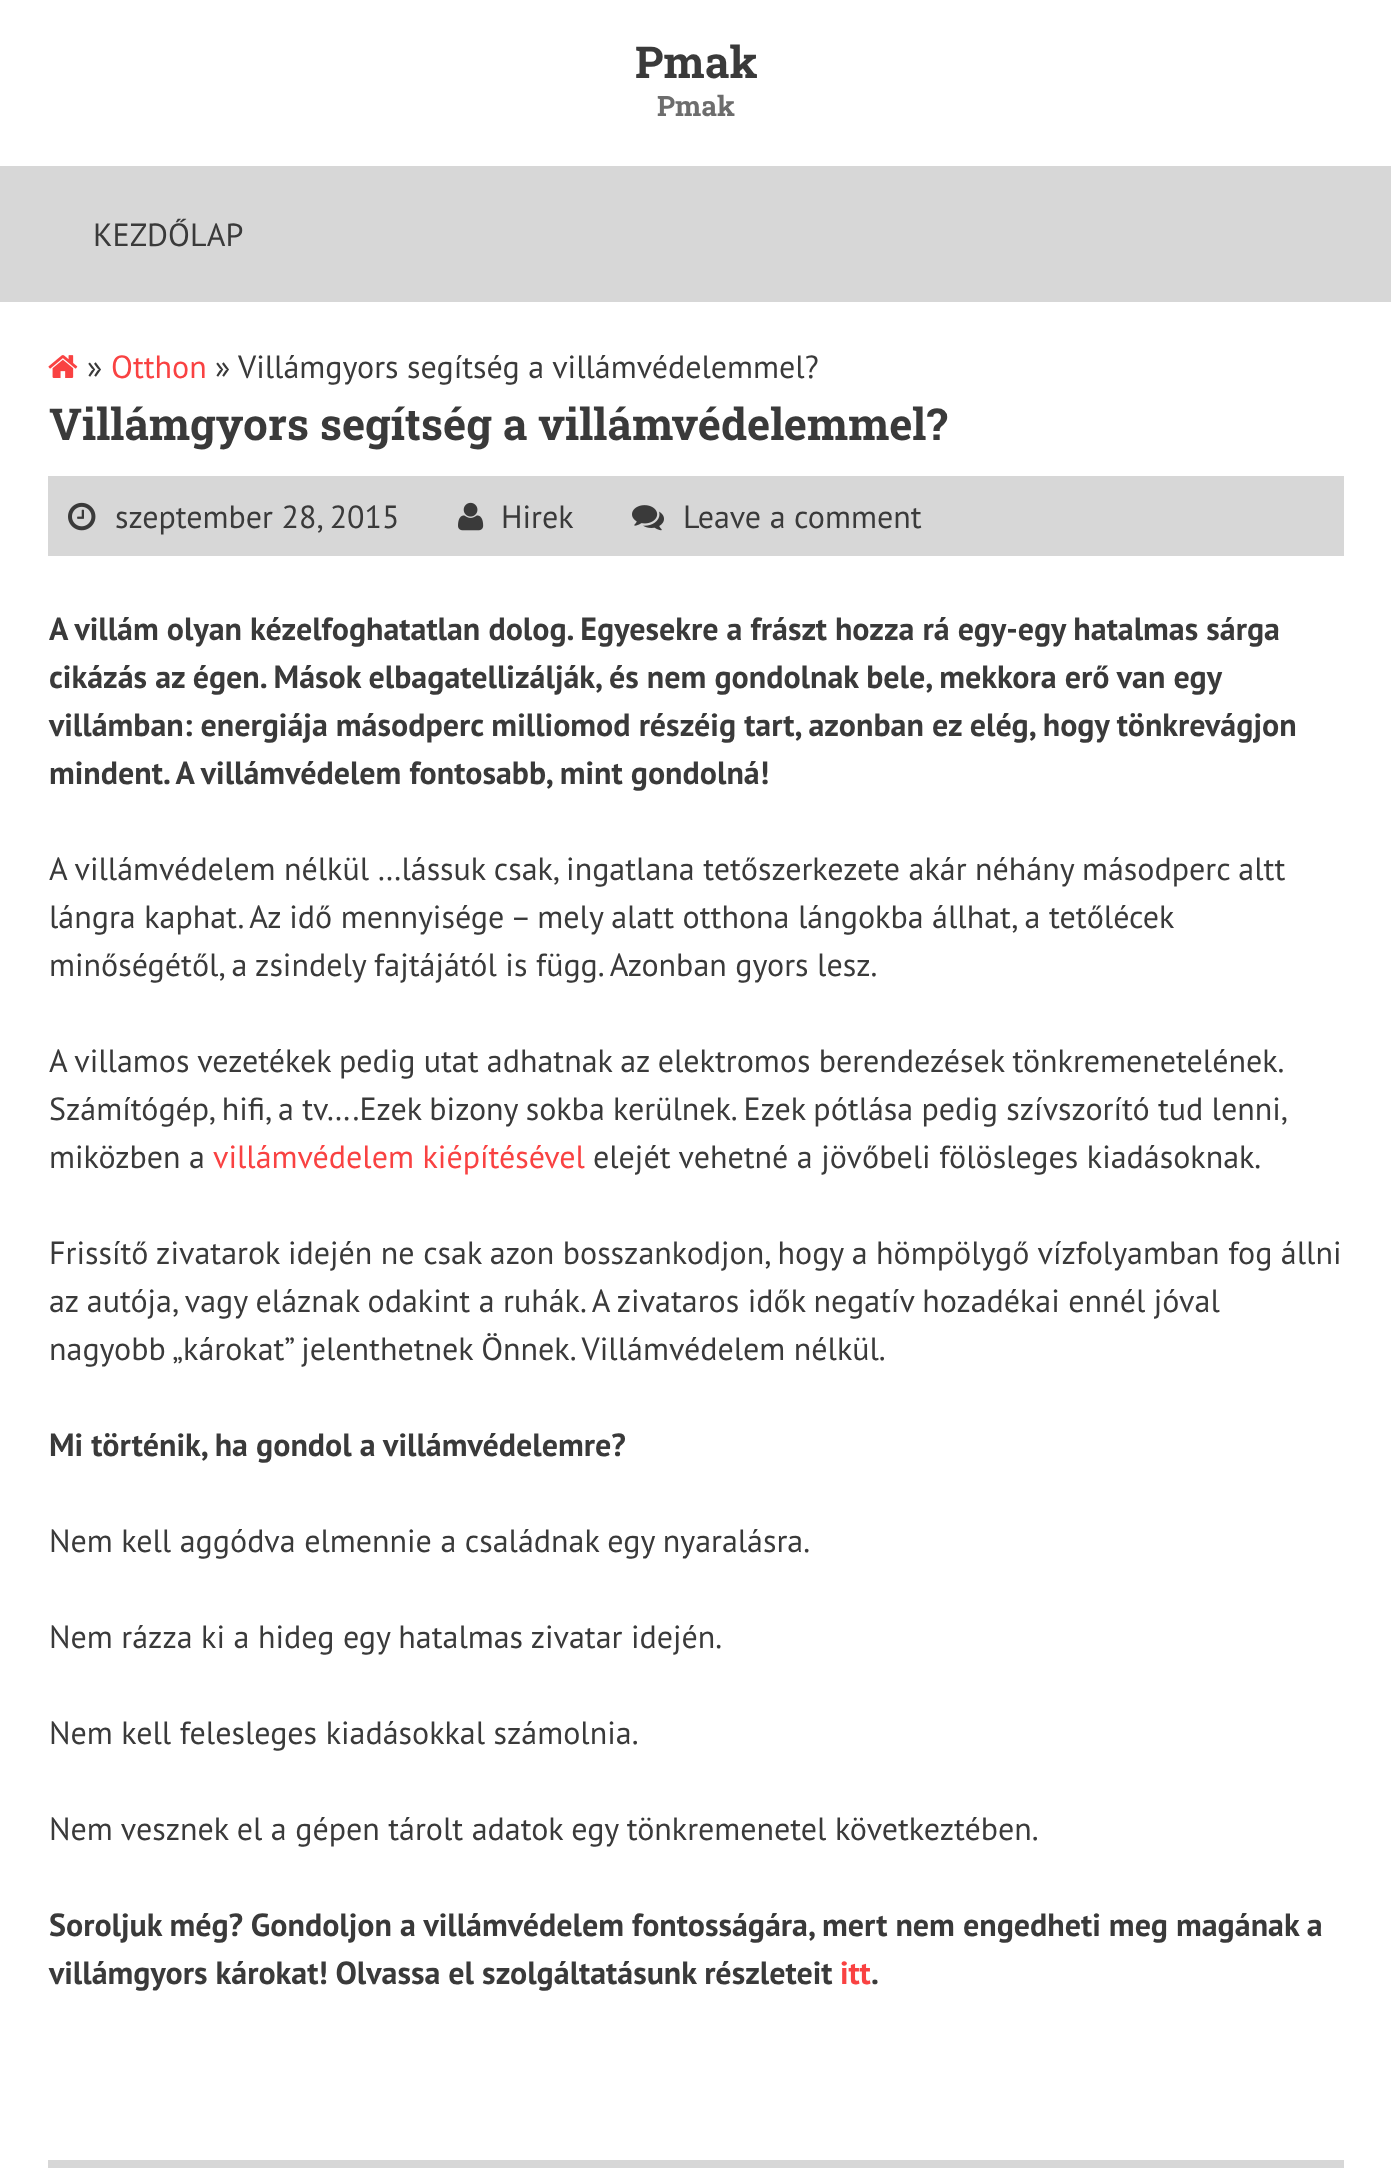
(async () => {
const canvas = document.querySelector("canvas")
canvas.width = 1391
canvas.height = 2168
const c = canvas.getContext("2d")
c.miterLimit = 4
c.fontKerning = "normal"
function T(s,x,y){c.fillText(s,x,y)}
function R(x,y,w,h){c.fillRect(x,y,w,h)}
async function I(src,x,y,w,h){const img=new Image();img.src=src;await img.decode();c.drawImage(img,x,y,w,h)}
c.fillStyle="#fff"
R(0,0,1391,2168)
c.font="bold 44px Roboto Slab"
c.fillStyle="#3a3a3a"
T("Pmak",635,78)
c.font="bold 28px Roboto Slab"
c.fillStyle="#6d6d6d"
T("Pmak",657,116)
c.fillStyle="#d7d7d7"
R(0,166,1391,136)
c.font="32px PT Sans"
c.fillStyle="#3a3a3a"
T("KEZDŐLAP",93,246)
await I("1.png",48,355,30,23)
T("»",87,378)
c.fillStyle="#f94242"
T("Otthon",111,378)
c.fillStyle="#3a3a3a"
T("»",215,378)
T("Villámgyors segítség a villámvédelemmel?",238,378)
c.font="bold 44px Roboto Slab"
T("Villámgyors segítség a villámvédelemmel?",49,440)
c.fillStyle="#d7d7d7"
R(48,476,1296,80)
await I("2.png",68,502,28,29)
c.font="32px PT Sans"
c.fillStyle="#3a3a3a"
T("szeptember 28, 2015",115,528)
await I("3.png",458,502,26,29)
T("Hirek",501,528)
await I("4.png",632,505,32,26)
T("Leave a comment",683,528)
c.font="bold 32px PT Sans"
T("A villám olyan kézelfoghatatlan dolog. Egyesekre a frászt hozza rá egy-egy hatalmas sárga",49,640)
T("cikázás az égen. Mások elbagatellizálják, és nem gondolnak bele, mekkora erő van egy",49,688)
T("villámban: energiája másodperc milliomod részéig tart, azonban ez elég, hogy tönkrevágjon",49,736)
T("mindent. A villámvédelem fontosabb, mint gondolná!",49,784)
c.font="32px PT Sans"
T("A villámvédelem nélkül …lássuk csak, ingatlana tetőszerkezete akár néhány másodperc altt",49,880)
T("lángra kaphat. Az idő mennyisége – mely alatt otthona lángokba állhat, a tetőlécek",49,928)
T("minőségétől, a zsindely fajtájától is függ. Azonban gyors lesz.",49,976)
c.wordSpacing="-0.25px"
T("A villamos vezetékek pedig utat adhatnak az elektromos berendezések tönkremenetelének.",49,1072)
T("Számítógép, hifi, a tv….Ezek bizony sokba kerülnek. Ezek pótlása pedig szívszorító tud lenni,",49,1120)
c.wordSpacing="0px"
T("miközben a",49,1168)
c.fillStyle="#f94242"
T("villámvédelem kiépítésével",213,1168)
c.fillStyle="#3a3a3a"
T("elejét vehetné a jövőbeli fölösleges kiadásoknak.",593,1168)
T("Frissítő zivatarok idején ne csak azon bosszankodjon, hogy a hömpölygő vízfolyamban fog állni",49,1264)
T("az autója, vagy eláznak odakint a ruhák. A zivataros idők negatív hozadékai ennél jóval",49,1312)
T("nagyobb „károkat” jelenthetnek Önnek. Villámvédelem nélkül.",49,1360)
c.font="bold 32px PT Sans"
T("Mi történik, ha gondol a villámvédelemre?",49,1456)
c.font="32px PT Sans"
T("Nem kell aggódva elmennie a családnak egy nyaralásra.",49,1552)
T("Nem rázza ki a hideg egy hatalmas zivatar idején.",49,1648)
T("Nem kell felesleges kiadásokkal számolnia.",49,1744)
T("Nem vesznek el a gépen tárolt adatok egy tönkremenetel következtében.",49,1840)
c.font="bold 32px PT Sans"
T("Soroljuk még? Gondoljon a villámvédelem fontosságára, mert nem engedheti meg magának a",49,1936)
T("villámgyors károkat! Olvassa el szolgáltatásunk részleteit",49,1984)
c.fillStyle="#f94242"
T("itt",840,1984)
c.fillStyle="#3a3a3a"
T(".",871,1984)
c.fillStyle="#d7d7d7"
R(48,2160,1296,8)
})()
